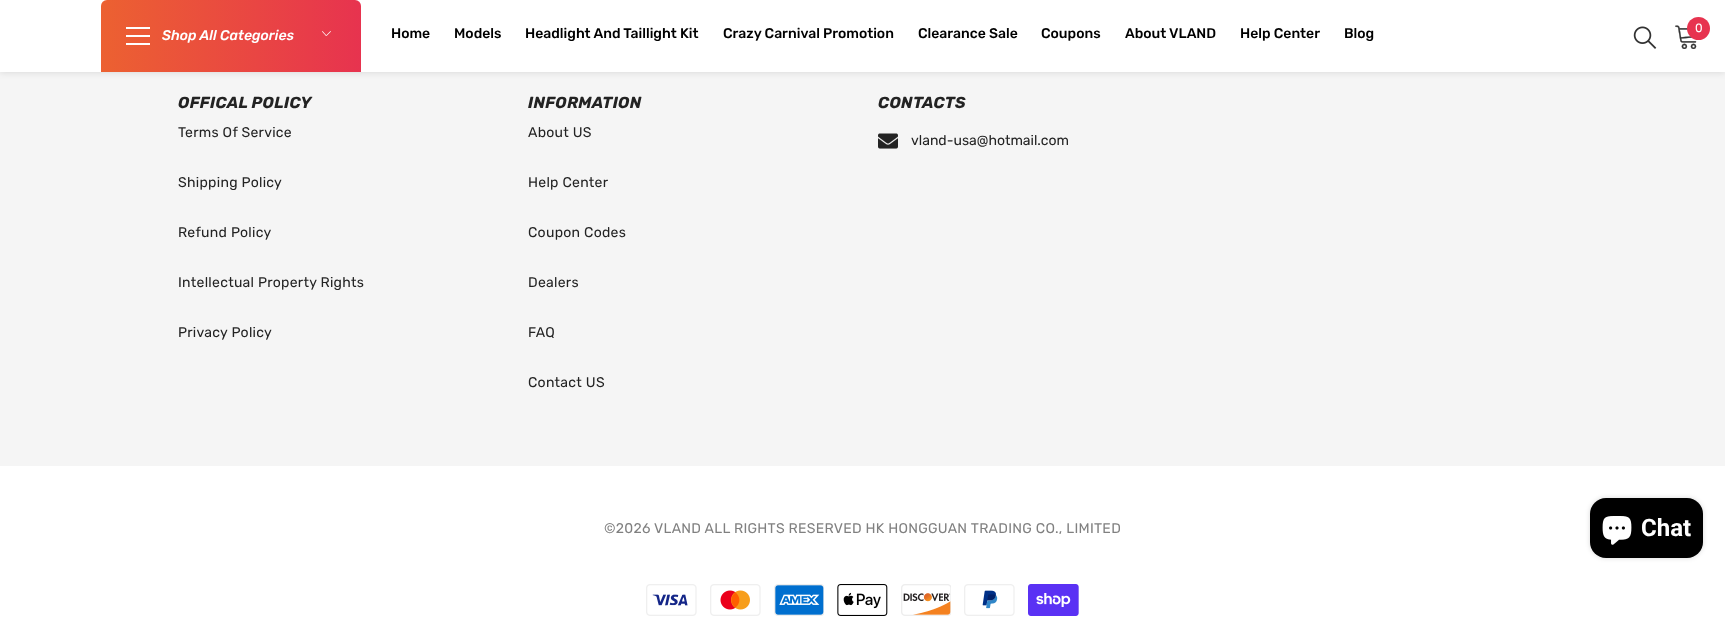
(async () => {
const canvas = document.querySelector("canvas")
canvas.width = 1725
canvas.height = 643
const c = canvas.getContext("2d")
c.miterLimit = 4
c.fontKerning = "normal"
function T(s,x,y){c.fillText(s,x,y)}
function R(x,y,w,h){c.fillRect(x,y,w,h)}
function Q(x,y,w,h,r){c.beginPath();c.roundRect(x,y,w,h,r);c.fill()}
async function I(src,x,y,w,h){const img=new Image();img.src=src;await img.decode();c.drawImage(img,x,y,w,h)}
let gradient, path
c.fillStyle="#fff"
R(0,0,1725,643)
c.fillStyle="#f5f5f5"
R(0,72,1725,394)
c.fillStyle="#0000001a"
c.filter="blur(3px)"
c.beginPath()
c.rect(0,1,1725,72)
c.fill()
c.filter="none"
c.fillStyle="#fff"
R(0,0,1725,72)
gradient = c.createLinearGradient(101,36,361,36)
gradient.addColorStop(0,"#ec6131")
gradient.addColorStop(1,"#e7334f")
c.fillStyle = gradient
c.beginPath()
c.roundRect(101,0,260,72,[6,6,0,0])
c.fill()
c.fillStyle="#fff"
R(126,35,24,2)
R(126,27,24,2)
R(126,43,24,2)
c.font="italic 500 14px Rubik"
T("Shop All Categories",162,40)
path = new Path2D("M331 31.5l-4.5 4.5l-.5-.5l4.5-4.5z")
c.fill(path)
path = new Path2D("M322.5 31l4 4.5l-.5 .5l-4-4.5z")
c.fill(path)
c.font="500 14px Rubik"
c.fillStyle="#000"
T("Home",391,38)
T("Models",454,38)
T("Headlight And Taillight Kit",525,38)
T("Crazy Carnival Promotion",723,38)
T("Clearance Sale",918,38)
T("Coupons",1041,38)
T("About VLAND",1125,38)
T("Help Center",1240,38)
T("Blog",1344,38)
await I("1.png",1633,26,24,23)
await I("2.png",1675,25,22,24)
c.fillStyle="#e7334f"
c.beginPath()
c.arc(1698.5,28.5,11.5,0,7)
c.fill()
c.font="12px Rubik"
c.fillStyle="#fff"
T("0",1695,32)
c.letterSpacing="0.25px"
c.font="italic bold 16px Rubik"
c.fillStyle="#232323"
T("OFFICAL POLICY",178,108)
c.letterSpacing="0.28px"
c.font="14px Rubik"
T("Terms Of Service",178,137)
T("Shipping Policy",178,187)
T("Refund Policy",178,237)
T("Intellectual Property Rights",178,287)
T("Privacy Policy",178,337)
c.letterSpacing="0.25px"
c.font="italic bold 16px Rubik"
T("INFORMATION",528,108)
c.letterSpacing="0.28px"
c.font="14px Rubik"
T("About US",528,137)
T("Help Center",528,187)
T("Coupon Codes",528,237)
T("Dealers",528,287)
T("FAQ",528,337)
T("Contact US",528,387)
c.letterSpacing="0.25px"
c.font="italic bold 16px Rubik"
T("CONTACTS",878,108)
await I("3.png",878,133,20,16)
c.letterSpacing="0px"
c.font="14px Rubik"
T("vland-usa@hotmail.com",911,145)
c.letterSpacing="0.28px"
c.fillStyle="#808080"
T("©2026 VLAND ALL RIGHTS RESERVED HK HONGGUAN TRADING CO., LIMITED",604,533)
await I("4.png",646,584,51,32)
await I("5.png",710,584,51,32)
await I("6.png",774,584,50,32)
await I("7.png",837,584,51,32)
await I("8.png",901,584,50,32)
await I("9.png",964,584,51,32)
await I("10.png",1028,584,51,32)
c.fillStyle="#00000026"
c.filter="blur(2.5px)"
c.beginPath()
c.roundRect(1590,498,113,60,16)
c.fill()
c.filter="none"
c.fillStyle="#000"
Q(1590,498,113,60,16)
await I("11.png",1602,516,30,29)
c.letterSpacing="0px"
c.font="bold 24px Roboto"
c.fillStyle="#fff"
T("Chat",1641,536)
})()
